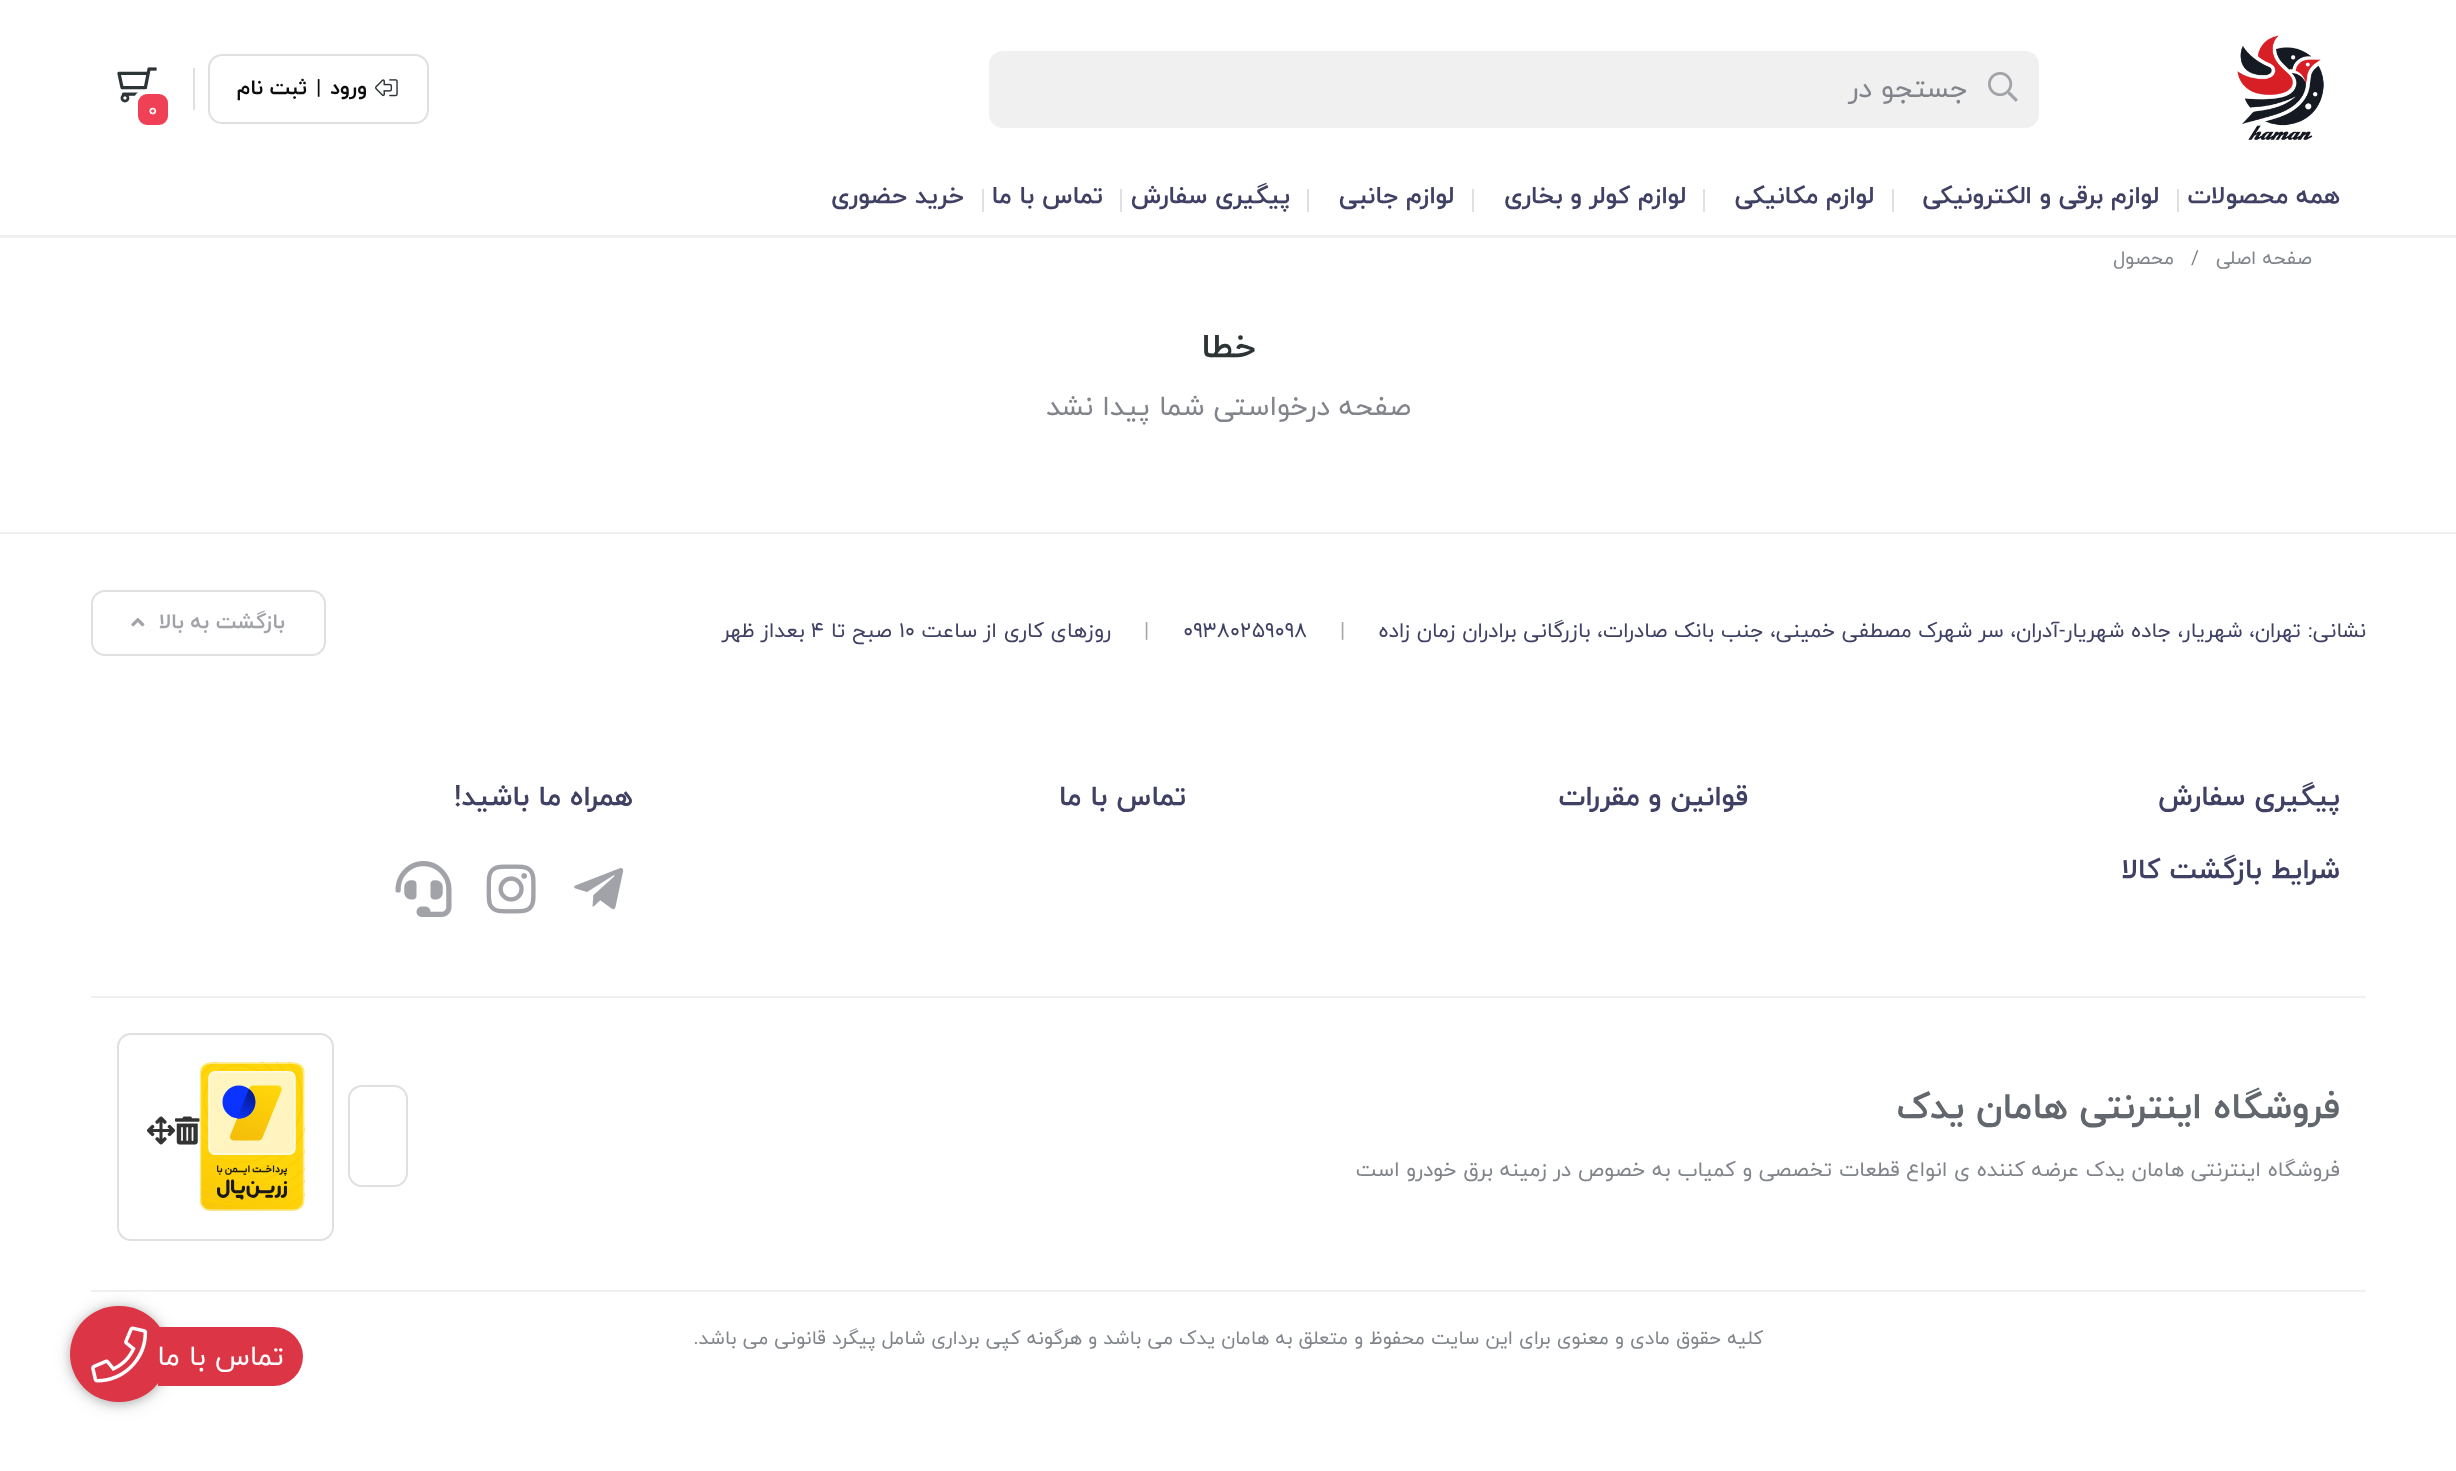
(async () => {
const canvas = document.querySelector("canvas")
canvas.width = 2456
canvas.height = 1471
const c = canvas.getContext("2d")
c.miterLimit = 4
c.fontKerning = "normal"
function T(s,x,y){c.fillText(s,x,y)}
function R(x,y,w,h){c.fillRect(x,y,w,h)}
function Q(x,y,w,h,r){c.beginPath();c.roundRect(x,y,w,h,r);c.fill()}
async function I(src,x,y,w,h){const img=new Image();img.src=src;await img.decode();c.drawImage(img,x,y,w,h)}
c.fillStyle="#fff"
R(0,0,2456,1471)
c.fillStyle="#f0f0f0"
R(0,235,2456,3)
await I("1.png",2237,35,87,105)
c.fillStyle="#f0f0f1"
Q(989,51,1050,77,14)
await I("2.png",1988,72,30,30)
c.direction="rtl"
c.font="28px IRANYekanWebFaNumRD"
c.fillStyle="#81858b"
T("جستجو در",1968,97)
c.beginPath()
c.roundRect(209,55,219,68,13)
c.strokeStyle="#e0e0e2"
c.lineWidth=2
c.stroke()
await I("3.png",375,79,23,18)
c.font="bold 21px IRANYekanWebFaNumRD"
c.fillStyle="#0c0c0c"
T("ورود",367,94)
c.direction="ltr"
T("|",316,94)
c.direction="rtl"
T("ثبت نام",307,94)
c.fillStyle="#e0e0e2"
R(193,68,2,42)
await I("4.png",117,67,40,36)
c.fillStyle="#ef4056"
c.beginPath()
c.roundRect(135.5,91.5,35,36,11.5)
c.fill()
c.strokeStyle="#fff"
c.lineWidth=5
c.stroke()
c.direction="ltr"
c.font="19.25px IRANYekanWebFaNumRD"
c.fillStyle="#fff"
T("0",148,116)
c.direction="rtl"
c.font="bold 24.5px IRANYekanWebFaNumRD"
c.fillStyle="#3f4064"
T("همه محصولات",2340,203)
c.fillStyle="#e0e0e2"
R(2177,189,2,23)
c.fillStyle="#3f4064"
T("لوازم برقی و الکترونیکی",2159,203)
c.fillStyle="#e0e0e2"
R(1892,189,2,23)
c.fillStyle="#3f4064"
T("لوازم مکانیکی",1874,203)
c.fillStyle="#e0e0e2"
R(1703,189,2,23)
c.fillStyle="#3f4064"
T("لوازم کولر و بخاری",1686,203)
c.fillStyle="#e0e0e2"
R(1472,189,2,23)
c.fillStyle="#3f4064"
T("لوازم جانبی",1454,203)
c.fillStyle="#e0e0e2"
R(1307,189,2,23)
c.fillStyle="#3f4064"
T("پیگیری سفارش",1290,203)
c.fillStyle="#e0e0e2"
R(1120,189,2,23)
c.fillStyle="#3f4064"
T("تماس با ما",1103,203)
c.fillStyle="#e0e0e2"
R(982,189,2,23)
c.fillStyle="#3f4064"
T("خرید حضوری",964,203)
c.font="19.25px IRANYekanWebFaNumRD"
c.fillStyle="#81858b"
T("صفحه اصلی",2312,264)
c.direction="ltr"
T("/",2191,264)
c.direction="rtl"
T("محصول",2174,264)
c.font="bold 34px IRANYekanWebFaNumRD"
c.fillStyle="#2d3436"
T("خطا",1256,357)
c.font="28px IRANYekanWebFaNumRD"
c.fillStyle="#81858b"
T("صفحه درخواستی شما پیدا نشد",1411,415)
c.fillStyle="#f0f0f1"
R(0,532,2456,2)
c.font="21px IRANYekanWebFaNumRD"
c.fillStyle="#3f4064"
T("نشانی: تهران، شهریار، جاده شهریار-آدران، سر شهرک مصطفی خمینی، جنب بانک صادرات، بازرگانی برادران زمان زاده",2366,637)
c.direction="ltr"
c.fillStyle="#a1a3a8"
T("|",1340,637)
c.fillStyle="#3f4064"
T("09380259098",1183,637)
c.fillStyle="#a1a3a8"
T("|",1144,637)
c.direction="rtl"
c.fillStyle="#3f4064"
T("روزهای کاری از ساعت",1111,637)
c.direction="ltr"
T("۱۰",899,637)
c.direction="rtl"
T("صبح تا",892,637)
c.direction="ltr"
T("4",811,637)
c.direction="rtl"
T("بعداز ظهر",805,637)
c.beginPath()
c.roundRect(92,591,233,64,13)
c.strokeStyle="#e0e0e2"
c.lineWidth=2
c.stroke()
c.font="bold 21px IRANYekanWebFaNumRD"
c.fillStyle="#a1a3a8"
T("بازگشت به بالا",285,628)
await I("5.png",131,618,14,9)
c.font="bold 28px IRANYekanWebFaNumRD"
c.fillStyle="#3f4064"
T("پیگیری سفارش",2340,805)
T("قوانین و مقررات",1748,805)
T("تماس با ما",1186,805)
T("شرایط بازگشت کالا",2340,878)
T("همراه ما باشید!",633,805)
await I("6.png",574,868,50,42)
await I("7.png",486,864,50,50)
await I("8.png",395,861,57,56)
c.fillStyle="#f0f0f1"
R(91,996,2275,2)
c.font="bold 36.75px IRANYekanWebFaNumRD"
c.fillStyle="#62666d"
T("فروشگاه اینترنتی هامان یدک",2340,1118)
c.font="21px IRANYekanWebFaNumRD"
c.fillStyle="#81858b"
T("فروشگاه اینترنتی هامان یدک عرضه کننده ی انواع قطعات تخصصی و کمیاب به خصوص در زمینه برق خودرو است",2340,1176)
c.beginPath()
c.roundRect(349,1086,58,100,13)
c.stroke()
c.beginPath()
c.roundRect(118,1034,215,206,13)
c.stroke()
await I("9.png",200,1062,105,149)
await I("10.png",175,1116,25,29)
await I("11.png",147,1116,28,29)
c.fillStyle="#f0f0f1"
R(91,1290,2275,2)
c.font="19.25px IRANYekanWebFaNumRD"
c.fillStyle="#81858b"
T("کلیه حقوق مادی و معنوی برای این سایت محفوظ و متعلق به هامان یدک می باشد و هرگونه کپی برداری شامل پیگرد قانونی می باشد.",1763,1344)
c.fillStyle="#00000026"
c.filter="blur(9px)"
c.beginPath()
c.roundRect(70,1307,98,97,48.5)
c.fill()
c.filter="none"
c.fillStyle="#00000033"
c.filter="blur(5px)"
c.beginPath()
c.roundRect(70,1307,98,97,48.5)
c.fill()
c.filter="none"
c.fillStyle="#dc3545"
Q(70,1306,98,96,48)
c.beginPath()
c.roundRect(158,1327,145,59,[0,29.5,29.5,0])
c.fill()
c.font="28px IRANYekanWebFaNumRD"
c.fillStyle="#fff"
T("تماس با ما",284,1365)
await I("12.png",91,1326,57,57)
})()
